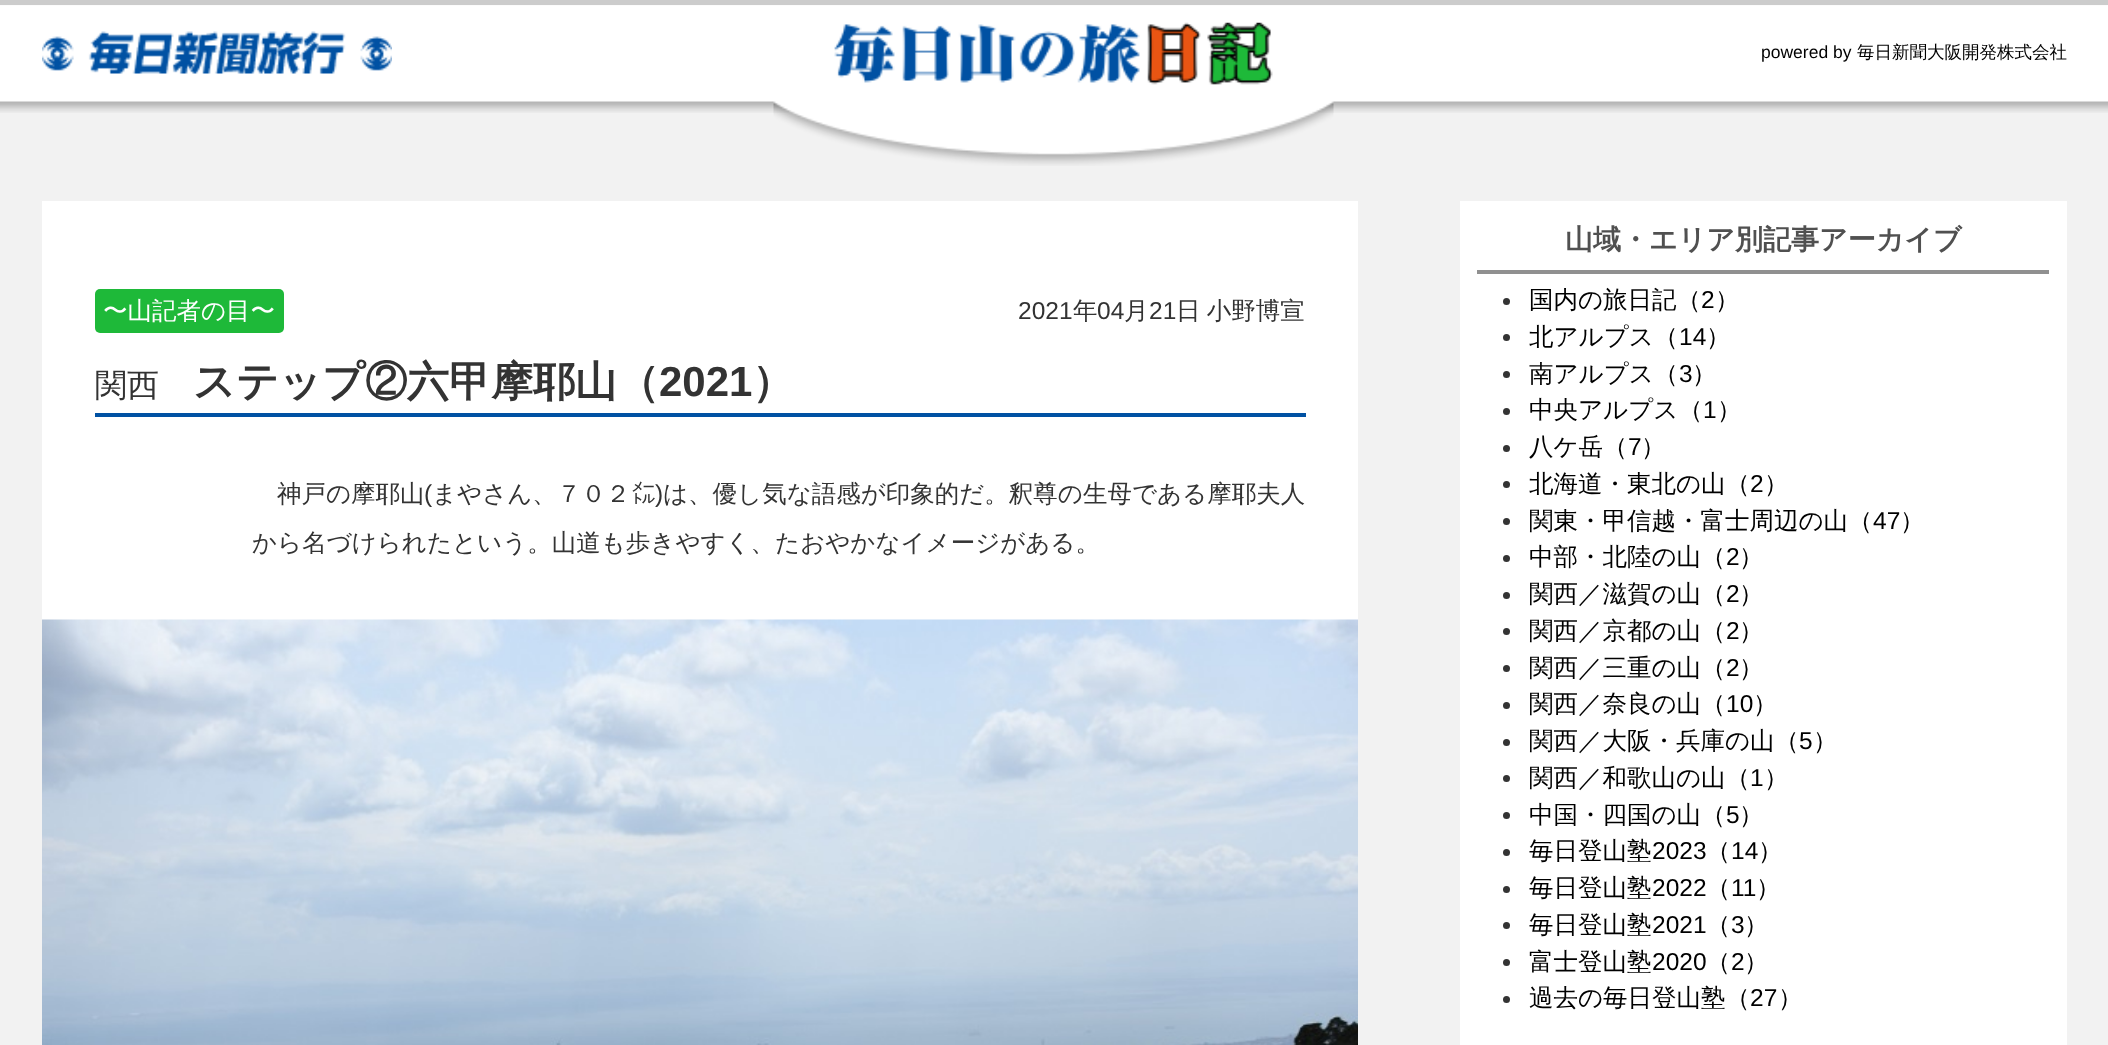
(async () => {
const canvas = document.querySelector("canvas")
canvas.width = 2108
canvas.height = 1045
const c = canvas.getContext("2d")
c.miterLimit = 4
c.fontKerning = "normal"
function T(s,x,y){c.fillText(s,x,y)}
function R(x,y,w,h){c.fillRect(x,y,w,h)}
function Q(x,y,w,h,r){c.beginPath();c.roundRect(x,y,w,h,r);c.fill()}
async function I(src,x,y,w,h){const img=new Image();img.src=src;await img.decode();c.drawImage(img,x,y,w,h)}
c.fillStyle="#f2f2f2"
R(0,0,2108,1045)
await I("1.png",0,5,2108,108)
c.fillStyle="#ccc"
R(0,0,2108,5)
await I("2.png",42,31,350,43)
await I("3.png",773,22,561,144)
c.font="17.5px Liberation Sans"
c.fillStyle="#000"
T("powered by",1761,58)
c.font="500 17.5px WenQuanYi Zen Hei"
T("毎日新聞大阪開発株式会社",1857,58)
c.fillStyle="#fff"
R(42,201,1316,419)
c.fillStyle="#1eb939"
Q(95,289,189,44,5)
c.font="500 24.5px WenQuanYi Zen Hei"
c.fillStyle="#fff"
T("〜山記者の目〜",103,319)
c.font="24.5px Liberation Sans"
c.fillStyle="#333"
T("2021",1018,319)
c.font="500 24.5px WenQuanYi Zen Hei"
T("年",1073,319)
c.font="24.5px Liberation Sans"
T("04",1097,319)
c.font="500 24.5px WenQuanYi Zen Hei"
T("月",1124,319)
c.font="24.5px Liberation Sans"
T("21",1149,319)
c.wordSpacing="-1px"
c.font="500 24.5px WenQuanYi Zen Hei"
T("日 小野博宣",1176,319)
c.fillStyle="#0051a3"
R(95,413,1211,4)
c.wordSpacing="0px"
c.font="500 32px WenQuanYi Zen Hei"
c.fillStyle="#333"
T("関西",95,396)
c.font="bold 42px WenQuanYi Zen Hei"
T("ステップ②六甲摩耶山（",193,396)
c.font="bold 42px Liberation Sans"
T("2021",659,396)
c.font="bold 42px WenQuanYi Zen Hei"
T("）",752,396)
c.font="500 24.5px WenQuanYi Zen Hei"
T("神戸の摩耶山",277,502)
c.font="24.5px Liberation Sans"
T("(",424,502)
c.font="500 24.5px WenQuanYi Zen Hei"
T("まやさん、７０２",432,502)
c.font="24.5px IPAPGothic"
T("㍍",631,502)
c.font="24.5px Liberation Sans"
T(")",655,502)
c.font="500 24.5px WenQuanYi Zen Hei"
T("は、優し気な語感が印象的だ。釈尊の生母である摩耶夫人",663,502)
T("から名づけられたという。山道も歩きやすく、たおやかなイメージがある。",252,551)
await I("4.png",42,619,1316,426)
c.fillStyle="#fff"
R(1460,201,607,844)
c.fillStyle="#909090"
R(1477,270,572,4)
c.font="bold 28px WenQuanYi Zen Hei"
c.fillStyle="#505050"
T("山域・エリア別記事アーカイブ",1565,249)
c.fillStyle="#333"
c.beginPath()
c.arc(1506.5,301.5,3.5,0,7)
c.fill()
c.font="500 24.5px WenQuanYi Zen Hei"
c.fillStyle="#000"
T("国内の旅日記（",1529,308)
c.font="24.5px Liberation Sans"
T("2",1701,308)
c.font="500 24.5px WenQuanYi Zen Hei"
T("）",1715,308)
c.fillStyle="#333"
c.beginPath()
c.arc(1506.5,337.5,3.5,0,7)
c.fill()
c.fillStyle="#000"
T("北アルプス（",1529,345)
c.font="24.5px Liberation Sans"
T("14",1679,345)
c.font="500 24.5px WenQuanYi Zen Hei"
T("）",1706,345)
c.fillStyle="#333"
c.beginPath()
c.arc(1506.5,374.5,3.5,0,7)
c.fill()
c.fillStyle="#000"
T("南アルプス（",1529,382)
c.font="24.5px Liberation Sans"
T("3",1679,382)
c.font="500 24.5px WenQuanYi Zen Hei"
T("）",1692,382)
c.fillStyle="#333"
c.beginPath()
c.arc(1506.5,411.5,3.5,0,7)
c.fill()
c.fillStyle="#000"
T("中央アルプス（",1529,418)
c.font="24.5px Liberation Sans"
T("1",1703,418)
c.font="500 24.5px WenQuanYi Zen Hei"
T("）",1717,418)
c.fillStyle="#333"
c.beginPath()
c.arc(1506.5,448.5,3.5,0,7)
c.fill()
c.fillStyle="#000"
T("八ケ岳（",1529,455)
c.font="24.5px Liberation Sans"
T("7",1628,455)
c.font="500 24.5px WenQuanYi Zen Hei"
T("）",1641,455)
c.fillStyle="#333"
c.beginPath()
c.arc(1506.5,484.5,3.5,0,7)
c.fill()
c.fillStyle="#000"
T("北海道・東北の山（",1529,492)
c.font="24.5px Liberation Sans"
T("2",1750,492)
c.font="500 24.5px WenQuanYi Zen Hei"
T("）",1764,492)
c.fillStyle="#333"
c.beginPath()
c.arc(1506.5,521.5,3.5,0,7)
c.fill()
c.fillStyle="#000"
T("関東・甲信越・富士周辺の山（",1529,529)
c.font="24.5px Liberation Sans"
T("47",1873,529)
c.font="500 24.5px WenQuanYi Zen Hei"
T("）",1900,529)
c.fillStyle="#333"
c.beginPath()
c.arc(1506.5,558.5,3.5,0,7)
c.fill()
c.fillStyle="#000"
T("中部・北陸の山（",1529,565)
c.font="24.5px Liberation Sans"
T("2",1726,565)
c.font="500 24.5px WenQuanYi Zen Hei"
T("）",1739,565)
c.fillStyle="#333"
c.beginPath()
c.arc(1506.5,595.5,3.5,0,7)
c.fill()
c.fillStyle="#000"
T("関西／滋賀の山（",1529,602)
c.font="24.5px Liberation Sans"
T("2",1726,602)
c.font="500 24.5px WenQuanYi Zen Hei"
T("）",1739,602)
c.fillStyle="#333"
c.beginPath()
c.arc(1506.5,631.5,3.5,0,7)
c.fill()
c.fillStyle="#000"
T("関西／京都の山（",1529,639)
c.font="24.5px Liberation Sans"
T("2",1726,639)
c.font="500 24.5px WenQuanYi Zen Hei"
T("）",1739,639)
c.fillStyle="#333"
c.beginPath()
c.arc(1506.5,668.5,3.5,0,7)
c.fill()
c.fillStyle="#000"
T("関西／三重の山（",1529,676)
c.font="24.5px Liberation Sans"
T("2",1726,676)
c.font="500 24.5px WenQuanYi Zen Hei"
T("）",1739,676)
c.fillStyle="#333"
c.beginPath()
c.arc(1506.5,705.5,3.5,0,7)
c.fill()
c.fillStyle="#000"
T("関西／奈良の山（",1529,712)
c.font="24.5px Liberation Sans"
T("10",1726,712)
c.font="500 24.5px WenQuanYi Zen Hei"
T("）",1753,712)
c.fillStyle="#333"
c.beginPath()
c.arc(1506.5,742.5,3.5,0,7)
c.fill()
c.fillStyle="#000"
T("関西／大阪・兵庫の山（",1529,749)
c.font="24.5px Liberation Sans"
T("5",1799,749)
c.font="500 24.5px WenQuanYi Zen Hei"
T("）",1813,749)
c.fillStyle="#333"
c.beginPath()
c.arc(1506.5,778.5,3.5,0,7)
c.fill()
c.fillStyle="#000"
T("関西／和歌山の山（",1529,786)
c.font="24.5px Liberation Sans"
T("1",1750,786)
c.font="500 24.5px WenQuanYi Zen Hei"
T("）",1764,786)
c.fillStyle="#333"
c.beginPath()
c.arc(1506.5,815.5,3.5,0,7)
c.fill()
c.fillStyle="#000"
T("中国・四国の山（",1529,823)
c.font="24.5px Liberation Sans"
T("5",1726,823)
c.font="500 24.5px WenQuanYi Zen Hei"
T("）",1739,823)
c.fillStyle="#333"
c.beginPath()
c.arc(1506.5,852.5,3.5,0,7)
c.fill()
c.fillStyle="#000"
T("毎日登山塾",1529,859)
c.font="24.5px Liberation Sans"
T("2023",1652,859)
c.font="500 24.5px WenQuanYi Zen Hei"
T("（",1706,859)
c.font="24.5px Liberation Sans"
T("14",1731,859)
c.font="500 24.5px WenQuanYi Zen Hei"
T("）",1758,859)
c.fillStyle="#333"
c.beginPath()
c.arc(1506.5,889.5,3.5,0,7)
c.fill()
c.fillStyle="#000"
T("毎日登山塾",1529,896)
c.font="24.5px Liberation Sans"
T("2022",1652,896)
c.font="500 24.5px WenQuanYi Zen Hei"
T("（",1706,896)
c.font="24.5px Liberation Sans"
T("11",1731,896)
c.font="500 24.5px WenQuanYi Zen Hei"
T("）",1756,896)
c.fillStyle="#333"
c.beginPath()
c.arc(1506.5,925.5,3.5,0,7)
c.fill()
c.fillStyle="#000"
T("毎日登山塾",1529,933)
c.font="24.5px Liberation Sans"
T("2021",1652,933)
c.font="500 24.5px WenQuanYi Zen Hei"
T("（",1706,933)
c.font="24.5px Liberation Sans"
T("3",1731,933)
c.font="500 24.5px WenQuanYi Zen Hei"
T("）",1744,933)
c.fillStyle="#333"
c.beginPath()
c.arc(1506.5,962.5,3.5,0,7)
c.fill()
c.fillStyle="#000"
T("富士登山塾",1529,970)
c.font="24.5px Liberation Sans"
T("2020",1652,970)
c.font="500 24.5px WenQuanYi Zen Hei"
T("（",1706,970)
c.font="24.5px Liberation Sans"
T("2",1731,970)
c.font="500 24.5px WenQuanYi Zen Hei"
T("）",1744,970)
c.fillStyle="#333"
c.beginPath()
c.arc(1506.5,999.5,3.5,0,7)
c.fill()
c.fillStyle="#000"
T("過去の毎日登山塾（",1529,1006)
c.font="24.5px Liberation Sans"
T("27",1750,1006)
c.font="500 24.5px WenQuanYi Zen Hei"
T("）",1778,1006)
})()
